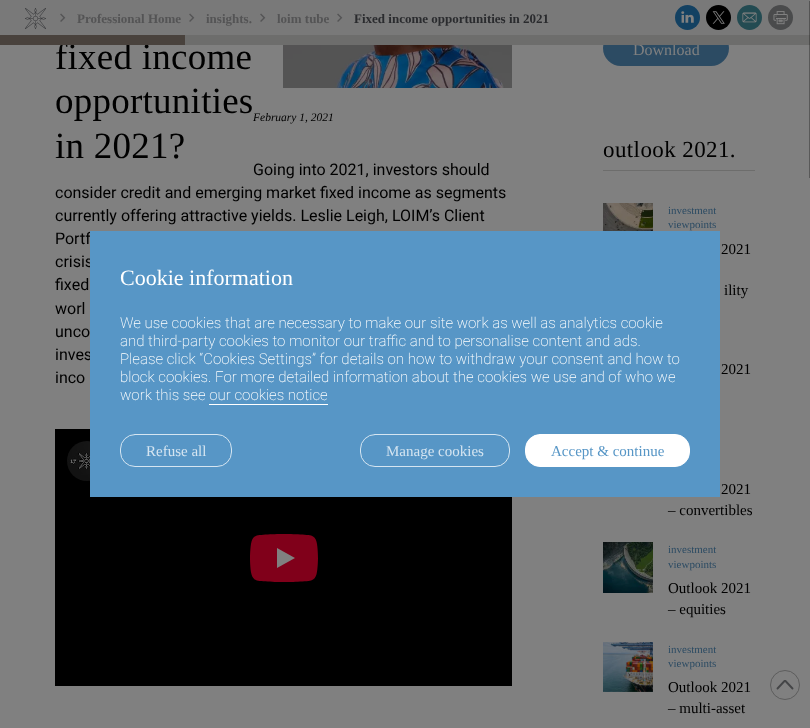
(async () => {
const canvas = document.querySelector("canvas")
canvas.width = 810
canvas.height = 728
const c = canvas.getContext("2d")
c.miterLimit = 4
c.fontKerning = "normal"
function T(s,x,y){c.fillText(s,x,y)}
function R(x,y,w,h){c.fillRect(x,y,w,h)}
async function I(src,x,y,w,h){const img=new Image();img.src=src;await img.decode();c.drawImage(img,x,y,w,h)}
let path
c.fillStyle="#808080"
R(0,0,810,728)
c.fillStyle="#2c4b63"
c.beginPath()
c.roundRect(604,31,124,34,17)
c.fill()
c.strokeStyle="#2c4b63"
c.lineWidth=2
c.stroke()
c.fillStyle="#797979"
R(0,0,810,35)
await I("1.png",25,8,21,21)
await I("2.png",60,13,6,9)
c.font="bold 13px Liberation Serif"
c.fillStyle="#545455"
T("Professional Home",77,23)
await I("2.png",189,13,6,9)
T("insights.",206,23)
await I("2.png",260,13,6,9)
T("loim tube",277,23)
await I("2.png",337,13,6,9)
c.fillStyle="#2a2b2e"
T("Fixed income opportunities in 2021",354,23)
c.fillStyle="#134162"
c.beginPath()
c.arc(687.5,17.5,12.5,0,7)
c.fill()
await I("3.png",681,11,13,12)
c.fillStyle="#000"
c.beginPath()
c.arc(718.5,17.5,12.5,0,7)
c.fill()
await I("4.png",712,11,13,13)
c.fillStyle="#234b52"
c.beginPath()
c.arc(749.5,17.5,12.5,0,7)
c.fill()
await I("5.png",742,12,15,11)
c.fillStyle="#4a4b4c"
c.beginPath()
c.arc(780.5,17.5,12.5,0,7)
c.fill()
await I("6.png",773,11,15,14)
c.letterSpacing="0.25px"
c.font="37px Liberation Serif"
c.fillStyle="#000"
T("fixed income",55,69)
c.letterSpacing="0px"
c.font="16px Liberation Serif"
c.fillStyle="#808080"
T("Download",633,55)
c.fillStyle="#6d6d6c"
R(185,35,625,10)
c.fillStyle="#49423d"
R(0,35,185,10)
c.letterSpacing="0.25px"
c.font="37px Liberation Serif"
c.fillStyle="#000"
T("opportunities",55,113)
T("in 2021?",55,158)
await I("7.png",283,45,229,43)
c.letterSpacing="0px"
c.font="italic 11.5px Liberation Serif"
T("February 1, 2021",253,121)
c.font="16px Roboto"
T("Going into 2021, investors should",253,175)
T("consider credit and emerging market fixed income as segments",55,198)
T("currently offering attractive yields. Leslie Leigh, LOIM’s Client",55,221)
T("Portf",55,244)
T("crisis",55,267)
T("fixed",55,290)
T("worl",55,314)
T("unco",55,337)
T("inves",55,360)
T("inco",55,383)
await I("8.png",55,429,457,257)
c.fillStyle="#6d6d6c"
R(603,170,152,1)
c.letterSpacing="0.4px"
c.font="23px Liberation Serif"
c.fillStyle="#000"
T("outlook 2021.",603,157)
await I("9.png",603,203,50,28)
c.letterSpacing="0px"
c.font="11px Liberation Serif"
c.fillStyle="#2c4b63"
T("investment",668,214)
T("viewpoints",668,228)
c.font="15px Liberation Serif"
c.fillStyle="#000"
T("2021",721,254)
T("ility",724,295)
T("2021",721,374)
T("2021",721,494)
T("– convertibles",668,515)
await I("10.png",603,542,50,51)
c.font="11px Liberation Serif"
c.fillStyle="#2c4b63"
T("investment",668,553)
T("viewpoints",668,568)
c.font="15px Liberation Serif"
c.fillStyle="#000"
T("Outlook 2021",668,593)
T("– equities",668,614)
await I("11.png",603,642,50,50)
c.font="11px Liberation Serif"
c.fillStyle="#2c4b63"
T("investment",668,653)
T("viewpoints",668,667)
c.font="15px Liberation Serif"
c.fillStyle="#000"
T("Outlook 2021",668,692)
T("– multi-asset",668,713)
c.beginPath()
c.arc(785,685,14.5,0,7)
c.strokeStyle="#5d5d5d"
c.lineWidth=1
c.stroke()
path = new Path2D("M792.5 688.5l-7-7.5h-1l-7 7.5")
c.strokeStyle="#444547"
c.lineWidth=1.9
c.lineCap="round"
c.stroke(path)
c.fillStyle="#0000004d"
path = new Path2D("M809 1v177h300v-1h-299v-176z")
c.fill(path)
c.fillStyle="#5796c6"
R(90,231,630,266)
c.font="22px Liberation Serif"
c.fillStyle="#fff"
T("Cookie information",120,285)
c.font="200 15px Roboto"
T("We use cookies that are necessary to make our site work as well as analytics cookie",120,328)
T("and third-party cookies to monitor our traffic and to personalise content and ads.",120,346)
T("Please click “Cookies Settings” for details on how to withdraw your consent and how to",120,364)
T("block cookies. For more detailed information about the cookies we use and of who we",120,382)
T("work this see our cookies notice",120,400)
R(209,404,119,1)
c.beginPath()
c.roundRect(120.5,434.5,111,32,14.5)
c.strokeStyle="#d5e5f1"
c.lineWidth=1
c.stroke()
c.font="15px Liberation Serif"
c.fillStyle="#d5e5f1"
T("Refuse all",146,456)
c.beginPath()
c.roundRect(360.5,434.5,149,32,14.5)
c.stroke()
T("Manage cookies",386,456)
c.fillStyle="#fff"
c.beginPath()
c.roundRect(525.5,434.5,164,32,14.5)
c.fill()
c.strokeStyle="#fff"
c.stroke()
c.fillStyle="#5796c6"
T("Accept & continue",551,456)
})()
